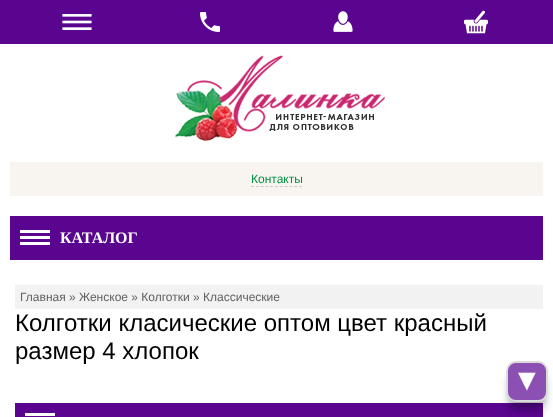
(async () => {
const canvas = document.querySelector("canvas")
canvas.width = 553
canvas.height = 417
const c = canvas.getContext("2d")
c.miterLimit = 4
c.fontKerning = "normal"
function T(s,x,y){c.fillText(s,x,y)}
function R(x,y,w,h){c.fillRect(x,y,w,h)}
async function I(src,x,y,w,h){const img=new Image();img.src=src;await img.decode();c.drawImage(img,x,y,w,h)}
let path
c.fillStyle="#fff"
R(0,0,553,417)
c.fillStyle="#590590"
R(0,0,553,44)
await I("1.png",62,14,30,16)
await I("2.png",200,12,20,20)
await I("3.png",333,11,20,21)
await I("4.png",464,10,24,24)
await I("5.png",175,55,210,87)
c.fillStyle="#f8f5f0"
R(10,162,533,34)
c.font="12px Liberation Sans"
c.fillStyle="#028f46"
T("Контакты",251,183)
path = new Path2D("M251 186.5h51")
c.strokeStyle="#ccc"
c.setLineDash([3,1.8])
c.stroke(path)
c.fillStyle="#590590"
R(10,216,533,44)
c.fillStyle="#fff"
R(20,236,30,3)
R(20,230,30,3)
R(20,242,30,3)
c.font="bold 16px Liberation Serif"
T("КАТАЛОГ",60,243)
c.fillStyle="#f2f2f2"
R(15,285,528,24)
c.font="12px Liberation Sans"
c.fillStyle="#616161"
T("Главная » Женское » Колготки » Классические",20,301)
c.font="24px Liberation Sans"
c.fillStyle="#000"
T("Колготки класические оптом цвет красный",15,331)
T("размер 4 хлопок",15,359)
c.fillStyle="#590590"
R(15,403,528,14)
c.fillStyle="#fff"
R(25,413,30,3)
c.fillStyle="#00000659"
c.filter="blur(4.5px)"
c.beginPath()
c.roundRect(509,374,36,35,7)
c.fill()
c.filter="none"
c.fillStyle="#8b50b1"
c.beginPath()
c.roundRect(507,362,40,39,9)
c.fill()
c.strokeStyle="#dbdbdb"
c.lineWidth=2
c.setLineDash([])
c.stroke()
c.font="30px Liberation Sans"
c.fillStyle="#fff"
T("▼",512,390)
})()
